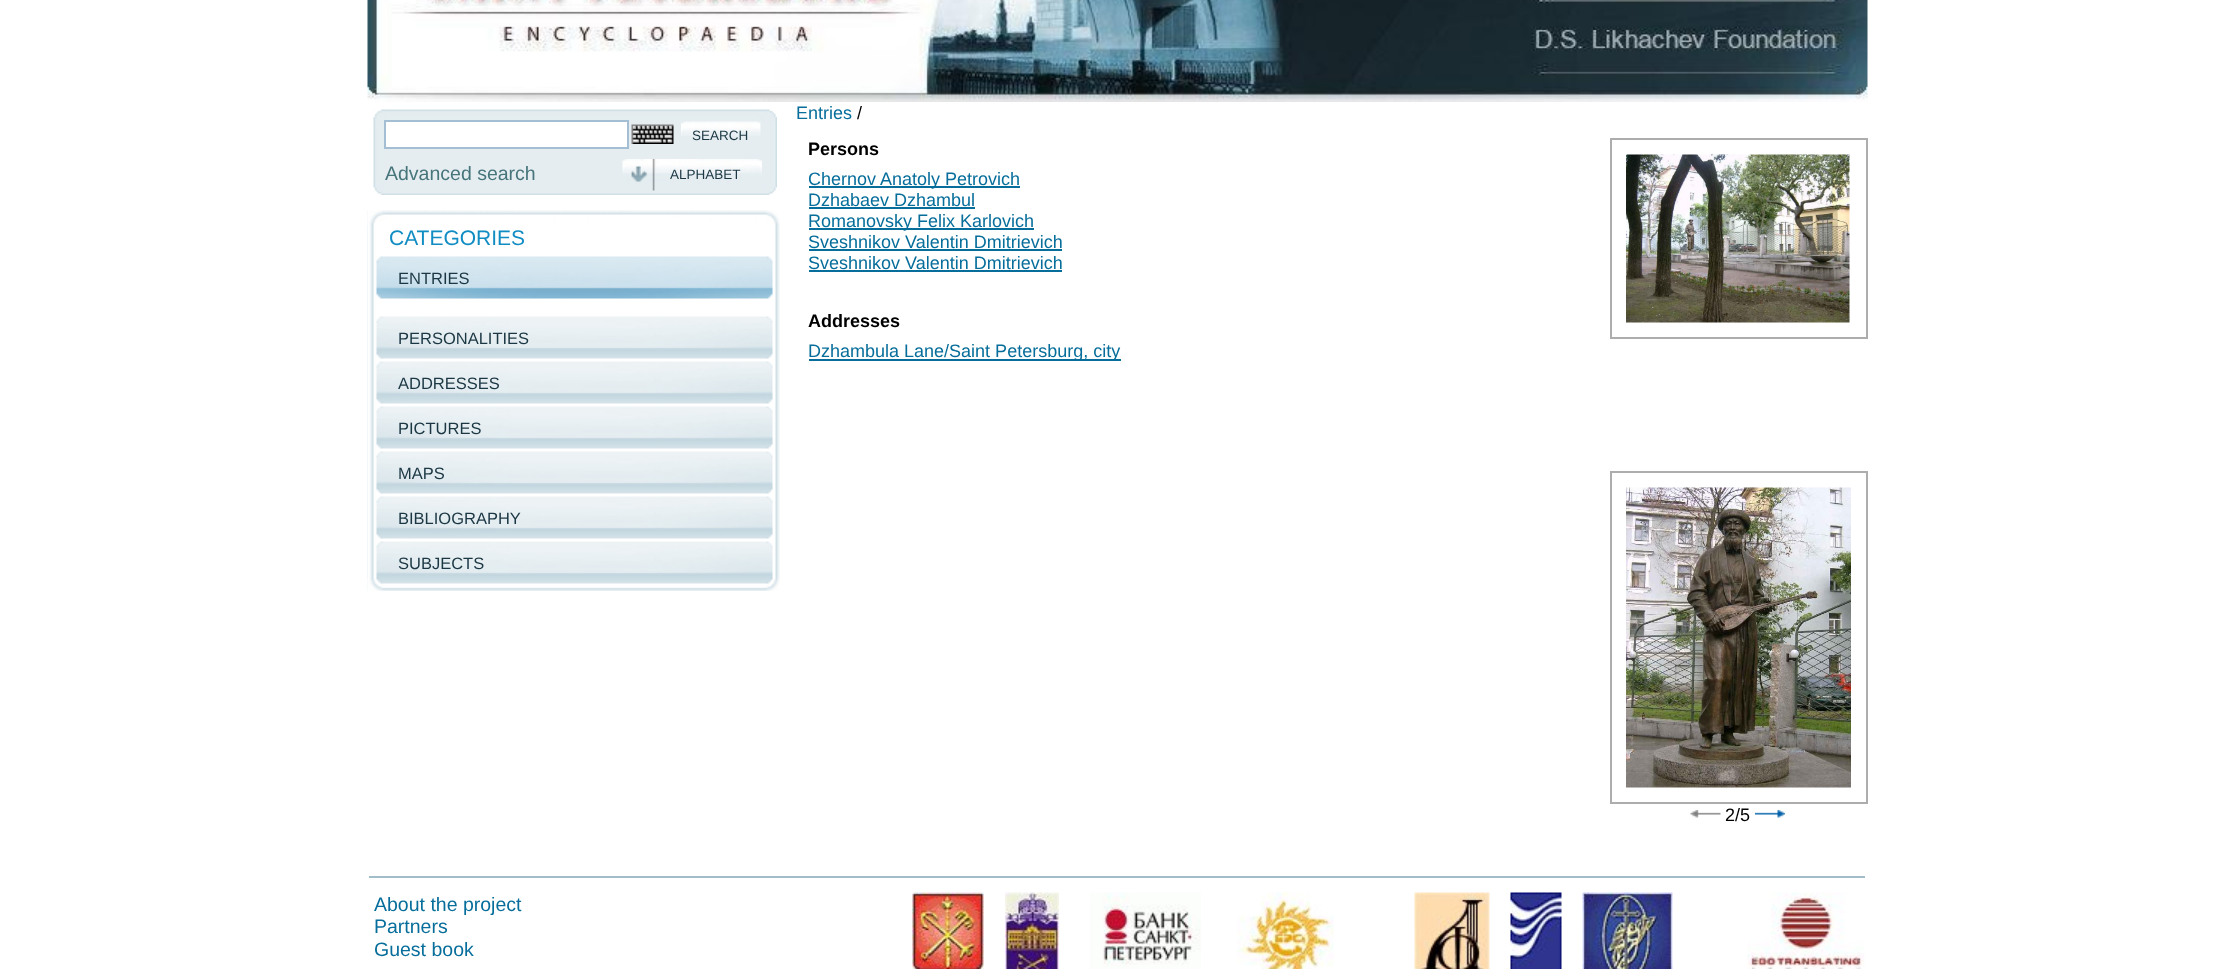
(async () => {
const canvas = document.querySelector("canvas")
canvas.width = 2233
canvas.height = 969
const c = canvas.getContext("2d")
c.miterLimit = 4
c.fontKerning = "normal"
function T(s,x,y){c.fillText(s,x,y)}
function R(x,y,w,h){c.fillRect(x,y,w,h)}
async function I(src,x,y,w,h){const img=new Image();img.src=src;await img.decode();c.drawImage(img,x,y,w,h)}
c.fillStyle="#fff"
R(0,0,2233,969)
await I("1.png",367,0,1501,102)
await I("2.png",373,109,404,86)
c.beginPath()
c.rect(385,121,243,27)
c.fill()
c.strokeStyle="#a4bed4"
c.lineWidth=2
c.stroke()
await I("3.png",631,124,43,20)
await I("4.png",681,121,80,15)
c.font="13.5px Liberation Sans"
c.fillStyle="#1b3743"
T("SEARCH",692,140)
c.font="19.5px Liberation Sans"
c.fillStyle="#47757c"
T("Advanced search",385,180)
await I("5.png",622,159,140,32)
c.font="13.5px Liberation Sans"
c.fillStyle="#1b3743"
T("ALPHABET",670,179)
await I("6.png",367,210,7,381)
await I("7.png",775,225,5,353)
await I("8.png",367,210,413,15)
await I("9.png",367,578,413,13)
c.font="21px Liberation Sans"
c.fillStyle="#118dc3"
T("CATEGORIES",389,245)
await I("10.png",376,256,397,43)
c.font="16.5px Liberation Sans"
c.fillStyle="#1b3743"
T("ENTRIES",398,284)
await I("11.png",376,316,397,43)
T("PERSONALITIES",398,344)
await I("11.png",376,361,397,43)
T("ADDRESSES",398,389)
await I("11.png",376,406,397,43)
T("PICTURES",398,434)
await I("11.png",376,451,397,43)
T("MAPS",398,479)
await I("11.png",376,496,397,43)
T("BIBLIOGRAPHY",398,524)
await I("12.png",376,541,397,43)
T("SUBJECTS",398,569)
c.font="18px Liberation Sans"
c.fillStyle="#076e9b"
T("Entries",796,119)
c.fillStyle="#000"
T("/",857,119)
c.font="bold 18px Liberation Sans"
T("Persons",808,155)
c.fillStyle="#076e9b"
R(809,186,211,2)
c.font="18px Liberation Sans"
T("Chernov Anatoly Petrovich",808,185)
T("Dzhabaev Dzhambul",808,206)
R(809,207,166,2)
R(809,228,225,2)
T("Romanovsky Felix Karlovich",808,227)
T("Sveshnikov Valentin Dmitrievich",808,248)
R(809,249,253,2)
T("Sveshnikov Valentin Dmitrievich",808,269)
R(809,270,253,2)
c.font="bold 18px Liberation Sans"
c.fillStyle="#000"
T("Addresses",808,327)
c.fillStyle="#076e9b"
R(809,359,312,2)
c.font="18px Liberation Sans"
T("Dzhambula Lane/Saint Petersburg, city",808,357)
c.strokeStyle="#adadad"
c.strokeRect(1611,139,256,199)
await I("13.png",1626,154,224,169)
c.strokeRect(1611,472,256,331)
await I("14.png",1626,487,225,301)
await I("15.png",1690,810,31,8)
c.fillStyle="#000"
T("2/5",1725,821)
await I("16.png",1755,810,30,8)
c.fillStyle="#a1bdc9"
R(369,876,1496,2)
c.font="19.5px Liberation Sans"
c.fillStyle="#076e9b"
T("About the project",374,911)
T("Partners",374,933)
T("Guest book",374,956)
await I("17.png",912,892,72,77)
await I("18.png",1005,892,54,77)
await I("19.png",1090,892,111,77)
await I("20.png",1237,892,97,77)
await I("21.png",1414,892,76,77)
await I("22.png",1510,892,52,77)
await I("23.png",1582,892,91,77)
await I("24.png",1747,892,118,77)
})()
